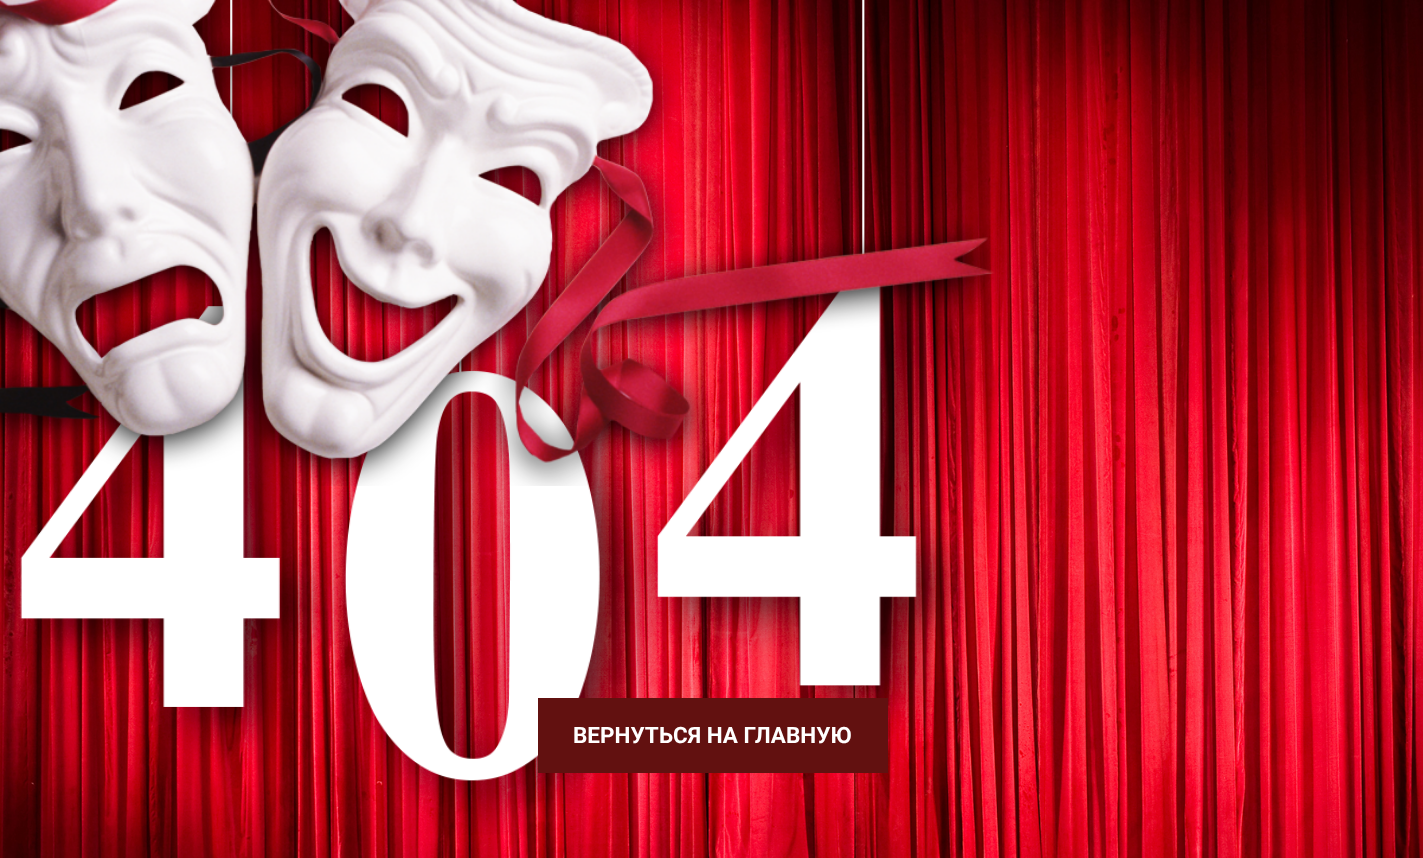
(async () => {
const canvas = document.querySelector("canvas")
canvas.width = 1423
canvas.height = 858
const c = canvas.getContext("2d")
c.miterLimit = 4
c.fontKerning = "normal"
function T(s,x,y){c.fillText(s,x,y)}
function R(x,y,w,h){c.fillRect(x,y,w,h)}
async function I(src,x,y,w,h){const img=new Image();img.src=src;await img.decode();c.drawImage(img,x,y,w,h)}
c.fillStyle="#fff"
R(0,0,1423,858)
await I("1.png",0,0,1423,858)
await I("3.png",4,0,971,835)
await I("2.png",0,0,996,486)
c.fillStyle="#621110"
R(538,698,350,75)
c.font="bold 22.5px Roboto"
c.fillStyle="#fff"
T("ВЕРНУТЬСЯ НА ГЛАВНУЮ",573,743)
})()
